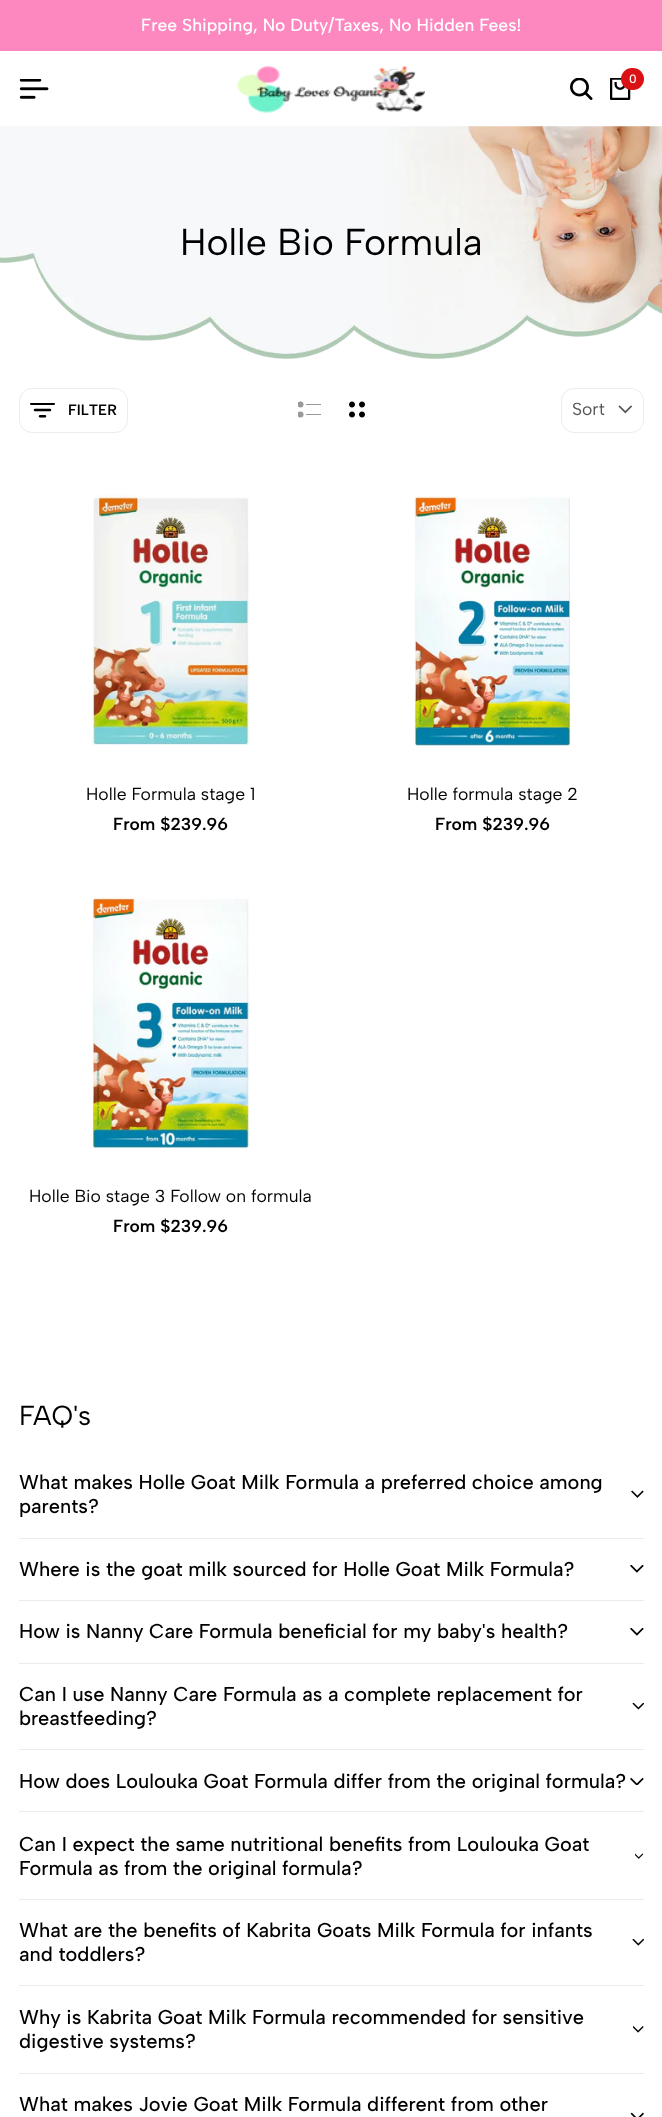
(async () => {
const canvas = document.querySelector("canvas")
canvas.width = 662
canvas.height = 2117
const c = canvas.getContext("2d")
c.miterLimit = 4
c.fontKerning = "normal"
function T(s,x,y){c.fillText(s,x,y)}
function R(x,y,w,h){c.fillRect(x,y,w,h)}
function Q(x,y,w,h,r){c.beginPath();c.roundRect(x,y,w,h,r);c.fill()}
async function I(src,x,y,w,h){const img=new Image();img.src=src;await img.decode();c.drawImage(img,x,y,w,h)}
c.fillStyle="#fff"
R(0,0,662,2117)
c.fillStyle="#fd87bf"
R(0,0,662,51)
c.font="500 17.5px Albert Sans"
c.fillStyle="#fff"
T("Free Shipping, No Duty/Taxes, No Hidden Fees!",141,31)
await I("1.png",19,79,30,20)
await I("2.png",237,66,188,47)
await I("3.png",570,78,23,22)
await I("4.png",610,78,21,22)
c.fillStyle="#db1215"
Q(621,68,23,22,11)
c.font="500 12px Albert Sans"
c.fillStyle="#fff"
T("0",629,83)
await I("5.png",0,126,662,233)
c.font="37.5px Albert Sans"
c.fillStyle="#000"
T("Holle Bio Formula",180,255)
c.beginPath()
c.roundRect(19.5,388.5,108,44,12.5)
c.strokeStyle="#ececec"
c.stroke()
await I("6.png",30,403,25,15)
c.font="600 15px Albert Sans"
T("FILTER",68,415)
c.save()
c.beginPath()
c.rect(298,401,23,17)
c.clip()
c.fillStyle="#999"
c.beginPath()
c.arc(300.5,404.5,3,0,7)
c.fill()
c.beginPath()
c.arc(300.5,414.5,3,0,7)
c.fill()
c.restore()
c.fillStyle="#999"
R(306,404,15,1)
R(306,414,15,1)
await I("7.png",349,401,16,17)
c.beginPath()
c.roundRect(561.5,388.5,82,44,12.5)
c.stroke()
c.font="17.5px Albert Sans"
c.fillStyle="#545454"
T("Sort",572,415)
await I("8.png",618,405,15,9)
await I("9.png",91,494,159,252)
c.fillStyle="#000"
T("Holle Formula stage 1",86,800)
c.font="600 17.5px Albert Sans"
T("From $239.96",113,830)
await I("10.png",413,496,159,251)
c.font="17.5px Albert Sans"
T("Holle formula stage 2",407,800)
c.font="600 17.5px Albert Sans"
T("From $239.96",435,830)
await I("11.png",91,897,159,252)
c.font="17.5px Albert Sans"
T("Holle Bio stage 3 Follow on formula",29,1202)
c.font="600 17.5px Albert Sans"
T("From $239.96",113,1232)
c.font="27.5px Albert Sans"
T("FAQ's",19,1425)
c.fillStyle="#ebebeb"
R(19,1538,625,1)
c.font="500 20px Albert Sans"
c.fillStyle="#000"
T("What makes Holle Goat Milk Formula a preferred choice among",19,1489)
T("parents?",19,1513)
await I("12.png",631,1490,13,8)
c.fillStyle="#ebebeb"
R(19,1600,625,1)
c.fillStyle="#000"
T("Where is the goat milk sourced for Holle Goat Milk Formula?",19,1576)
await I("13.png",630,1565,14,8)
c.fillStyle="#ebebeb"
R(19,1663,625,1)
c.fillStyle="#000"
T("How is Nanny Care Formula beneficial for my baby's health?",19,1638)
await I("14.png",630,1628,14,8)
c.fillStyle="#ebebeb"
R(19,1749,625,1)
c.fillStyle="#000"
T("Can I use Nanny Care Formula as a complete replacement for",19,1701)
T("breastfeeding?",19,1725)
await I("15.png",632,1703,12,7)
c.fillStyle="#ebebeb"
R(19,1811,625,1)
c.fillStyle="#000"
T("How does Loulouka Goat Formula differ from the original formula?",19,1788)
await I("16.png",630,1777,14,8)
c.fillStyle="#ebebeb"
R(19,1899,625,1)
c.fillStyle="#000"
T("Can I expect the same nutritional benefits from Loulouka Goat",19,1851)
T("Formula as from the original formula?",19,1875)
await I("17.png",635,1853,9,6)
c.fillStyle="#ebebeb"
R(19,1985,625,1)
c.fillStyle="#000"
T("What are the benefits of Kabrita Goats Milk Formula for infants",19,1937)
T("and toddlers?",19,1961)
await I("18.png",632,1939,12,7)
c.fillStyle="#ebebeb"
R(19,2073,625,1)
c.fillStyle="#000"
T("Why is Kabrita Goat Milk Formula recommended for sensitive",19,2024)
T("digestive systems?",19,2048)
await I("19.png",633,2026,11,7)
T("What makes Jovie Goat Milk Formula different from other",19,2111)
await I("20.png",630,2112,14,5)
})()
